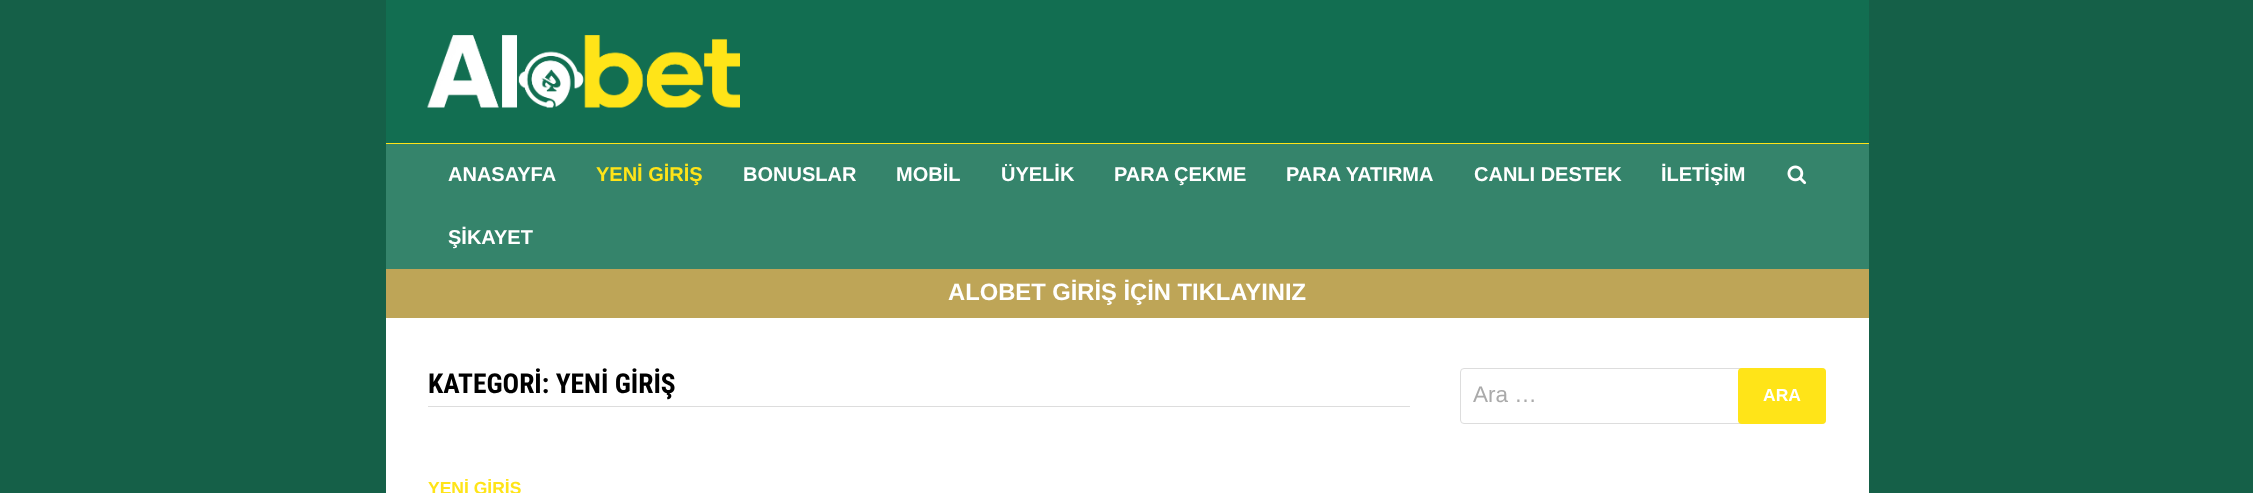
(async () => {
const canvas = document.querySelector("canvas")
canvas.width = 2253
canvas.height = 493
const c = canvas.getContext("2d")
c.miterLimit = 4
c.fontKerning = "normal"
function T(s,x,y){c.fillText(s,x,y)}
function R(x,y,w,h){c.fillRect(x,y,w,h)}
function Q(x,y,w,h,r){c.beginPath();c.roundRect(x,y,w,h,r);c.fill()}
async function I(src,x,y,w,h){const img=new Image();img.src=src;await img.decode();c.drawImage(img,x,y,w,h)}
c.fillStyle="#156048"
R(0,0,2253,493)
c.fillStyle="#fff"
R(386,318,1483,175)
c.fillStyle="#126e51"
R(386,0,1483,143)
await I("1.png",427,35,313,73)
c.fillStyle="#35846b"
R(386,144,1483,125)
c.fillStyle="#ffe418"
R(386,143,1483,1)
c.font="bold 20px Liberation Sans"
c.fillStyle="#fff"
T("ANASAYFA",448,181)
c.fillStyle="#ffe418"
T("YENİ GİRİŞ",596,181)
c.fillStyle="#fff"
T("BONUSLAR",743,181)
T("MOBİL",896,181)
T("ÜYELİK",1001,181)
T("PARA ÇEKME",1114,181)
T("PARA YATIRMA",1286,181)
T("CANLI DESTEK",1474,181)
T("İLETİŞİM",1661,181)
T("ŞİKAYET",448,244)
await I("2.png",1787,165,20,20)
c.fillStyle="#bea557"
R(386,269,1483,49)
c.font="bold 23.75px Liberation Sans"
c.fillStyle="#fff"
T("ALOBET GİRİŞ İÇİN TIKLAYINIZ",948,300)
c.fillStyle="#ddd"
R(428,406,982,1)
c.font="bold 27.5px Roboto Condensed"
c.fillStyle="#000"
T("KATEGORİ: YENİ GİRİŞ",428,393)
c.font="bold 17.5px Liberation Sans"
c.fillStyle="#ffe418"
T("YENİ GİRİŞ",428,494)
c.beginPath()
c.roundRect(1460.5,368.5,365,55,3.5)
c.strokeStyle="#ddd"
c.stroke()
c.font="22.5px Liberation Sans"
c.fillStyle="#aaa"
T("Ara …",1473,402)
c.fillStyle="#ffe418"
Q(1738,368,88,56,4)
c.font="bold 17.5px Liberation Sans"
c.fillStyle="#fff"
T("ARA",1763,401)
})()
